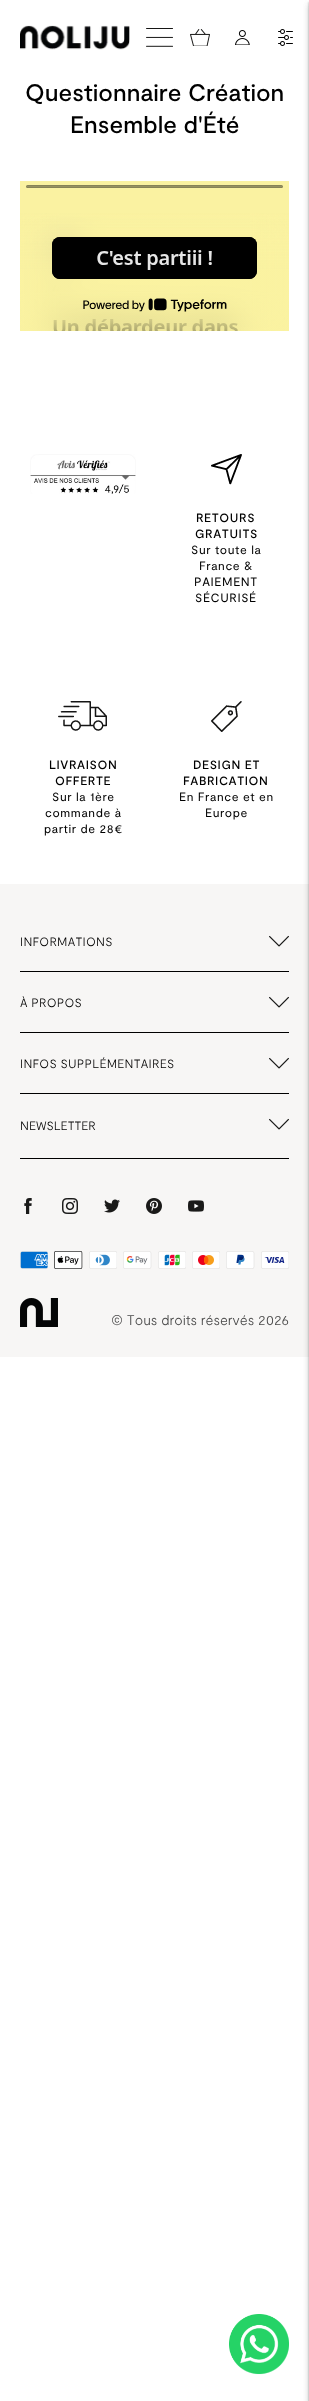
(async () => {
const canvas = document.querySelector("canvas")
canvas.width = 309
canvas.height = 2401
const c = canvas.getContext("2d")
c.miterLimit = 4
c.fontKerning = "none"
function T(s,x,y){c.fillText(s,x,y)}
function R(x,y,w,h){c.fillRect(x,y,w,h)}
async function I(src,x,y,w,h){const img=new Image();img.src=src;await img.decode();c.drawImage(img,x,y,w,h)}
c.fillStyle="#fff"
R(0,0,309,2401)
c.fillStyle="#f7f6f5"
R(0,884,309,473)
c.fillStyle="#0000001a"
c.filter="blur(3px)"
c.beginPath()
c.rect(309,4,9,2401)
c.fill()
c.filter="none"
c.fillStyle="#00000026"
c.filter="blur(1px)"
c.beginPath()
c.rect(309,2,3,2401)
c.fill()
c.filter="none"
await I("1.png",20,25,110,25)
await I("2.png",146,28,27,19)
await I("3.png",190,29,20,17)
await I("4.png",235,30,15,15)
await I("5.png",278,29,15,17)
c.fillStyle="#0000001a"
c.filter="blur(3px)"
c.beginPath()
c.rect(309,4,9,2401)
c.fill()
c.filter="none"
c.fillStyle="#00000026"
c.filter="blur(1px)"
c.beginPath()
c.rect(309,2,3,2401)
c.fill()
c.filter="none"
c.font="500 24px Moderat"
c.fillStyle="#000"
T("Questionnaire Création",25,101)
T("Ensemble d'Été",70,133)
await I("6.png",20,181,269,150)
await I("7.png",30,454,106,40)
await I("8.png",211,454,31,31)
c.letterSpacing="0.6px"
c.font="500 12px Moderat"
T("RETOURS",196,522)
T("GRATUITS",195,538)
c.font="12px Moderat"
T("Sur toute la",191,554)
T("France &",199,570)
T("PAIEMENT",194,586)
T("SÉCURISÉ",195,602)
await I("9.png",58,701,49,30)
c.font="500 12px Moderat"
T("LIVRAISON",49,769)
T("OFFERTE",55,785)
c.font="12px Moderat"
T("Sur la 1ère",52,801)
T("commande à",45,817)
T("partir de 28€",44,833)
await I("10.png",211,701,31,31)
c.font="500 12px Moderat"
T("DESIGN ET",193,769)
T("FABRICATION",183,785)
c.font="12px Moderat"
T("En France et en",179,801)
T("Europe",205,817)
R(20,971,269,1)
c.letterSpacing="0.25px"
c.font="300 12px Moderat"
T("INFORMATIONS",20,946)
await I("11.png",269,935,20,12)
R(20,1032,269,1)
T("À PROPOS",20,1007)
await I("11.png",269,996,20,12)
R(20,1093,269,1)
T("INFOS SUPPLÉMENTAIRES",20,1068)
await I("11.png",269,1057,20,12)
R(20,1158,269,1)
c.letterSpacing="0px"
T("NEWSLETTER",20,1130)
await I("11.png",269,1118,20,12)
await I("12.png",24,1198,8,16)
await I("13.png",62,1198,16,16)
await I("14.png",104,1199,16,14)
await I("15.png",146,1198,16,16)
await I("16.png",188,1200,16,12)
await I("17.png",20,1251,28,18)
await I("18.png",54,1251,29,18)
await I("19.png",89,1251,28,18)
await I("20.png",123,1251,29,18)
await I("21.png",158,1251,28,18)
await I("22.png",192,1251,28,18)
await I("23.png",226,1251,29,18)
await I("24.png",261,1251,28,18)
await I("25.png",20,1298,38,29)
c.font="300 14px Moderat"
c.fillStyle="#4a4a4a"
T("© Tous droits réservés",111,1325)
T("2026",258,1325)
await I("26.png",229,2314,60,61)
})()
